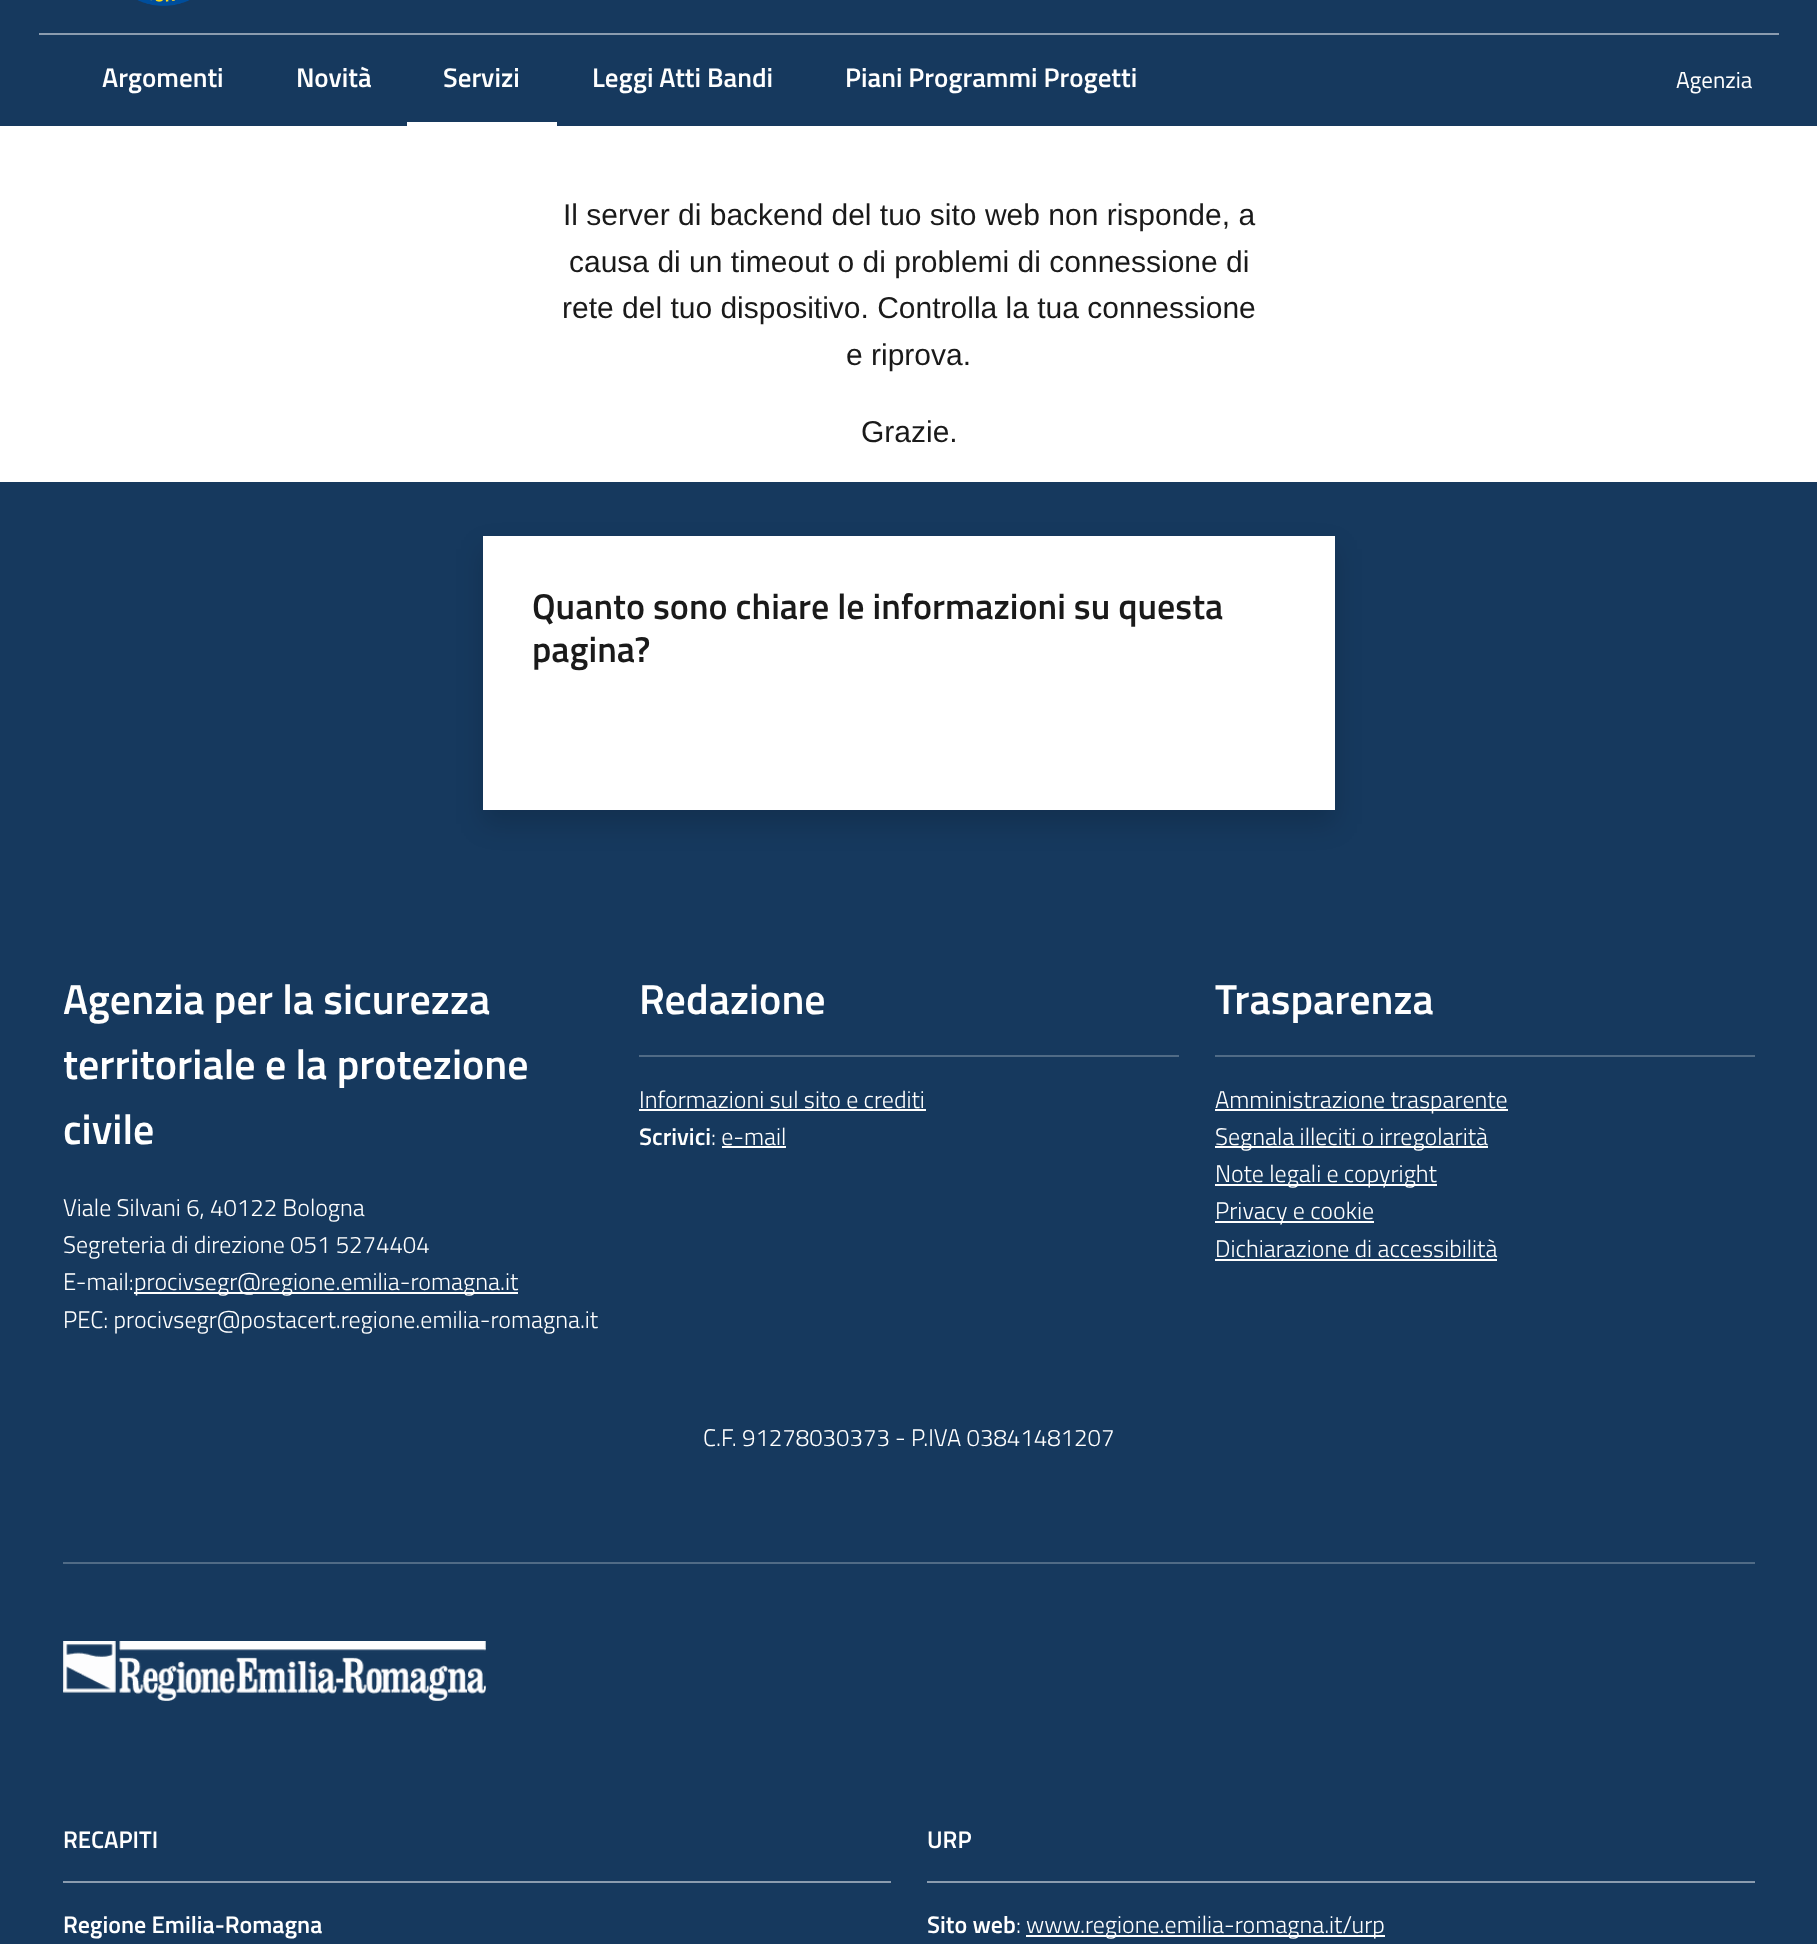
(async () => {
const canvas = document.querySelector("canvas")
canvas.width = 1817
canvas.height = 1944
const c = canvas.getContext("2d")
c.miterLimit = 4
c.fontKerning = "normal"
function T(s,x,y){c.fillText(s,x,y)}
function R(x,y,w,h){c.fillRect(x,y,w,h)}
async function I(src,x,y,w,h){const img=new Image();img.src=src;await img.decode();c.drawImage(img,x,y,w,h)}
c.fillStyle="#fff"
R(0,0,1817,1944)
c.fillStyle="#16395e"
R(0,0,1817,126)
await I("1.png",137,0,53,6)
c.fillStyle="#8b9caf"
R(39,33,1740,2)
c.font="600 27px Titillium Web"
c.fillStyle="#fff"
T("Argomenti",102,87)
T("Novità",296,87)
R(407,122,150,4)
T("Servizi",443,87)
T("Leggi Atti Bandi",592,87)
T("Piani Programmi Progetti",845,87)
c.font="23px Titillium Web"
T("Agenzia",1676,88)
c.font="30px Liberation Sans"
c.fillStyle="#1a1a1a"
T("Il server di backend del tuo sito web non risponde, a",563,225)
T("causa di un timeout o di problemi di connessione di",569,272)
T("rete del tuo dispositivo. Controlla la tua connessione",562,318)
T("e riprova.",846,365)
T("Grazie.",861,442)
c.fillStyle="#16395e"
R(0,482,1817,1462)
c.fillStyle="#00000026"
c.filter="blur(13.5px)"
c.beginPath()
c.rect(483,549,852,275)
c.fill()
c.filter="none"
c.fillStyle="#fff"
R(483,536,852,274)
c.font="600 36px Titillium Web"
c.fillStyle="#1a1a1a"
T("Quanto sono chiare le informazioni su questa",532,619)
T("pagina?",532,662)
c.font="600 42px Titillium Web"
c.fillStyle="#fff"
T("Agenzia per la sicurezza",63,1014)
T("territoriale e la protezione",63,1079)
T("civile",63,1144)
c.font="300 24px Titillium Web"
T("Viale Silvani 6, 40122 Bologna",63,1216)
T("Segreteria di direzione 051 5274404",63,1253)
T("E-mail:",63,1290)
R(134,1292,384,2)
T("procivsegr@regione.emilia-romagna.it",134,1290)
T("PEC: procivsegr@postacert.regione.emilia-romagna.it",63,1328)
c.font="600 42px Titillium Web"
T("Redazione",639,1014)
c.fillStyle="#506b86"
R(639,1055,540,2)
c.font="300 24px Titillium Web"
c.fillStyle="#fff"
T("Informazioni sul sito e crediti",639,1108)
R(639,1109,287,2)
c.font="600 24px Titillium Web"
T("Scrivici",639,1145)
c.font="300 24px Titillium Web"
T(": e-mail",711,1145)
R(722,1146,64,2)
c.font="600 42px Titillium Web"
T("Trasparenza",1215,1014)
c.fillStyle="#506b86"
R(1215,1055,540,2)
c.fillStyle="#fff"
R(1215,1109,293,2)
c.font="300 24px Titillium Web"
T("Amministrazione trasparente",1215,1108)
R(1215,1146,273,2)
T("Segnala illeciti o irregolarità",1215,1145)
R(1215,1184,222,2)
T("Note legali e copyright",1215,1182)
R(1215,1221,159,2)
T("Privacy e cookie",1215,1219)
T("Dichiarazione di accessibilità",1215,1257)
R(1215,1259,282,2)
T("C.F. 91278030373 - P.IVA 03841481207",703,1446)
c.fillStyle="#506b86"
R(63,1562,1692,2)
await I("2.png",63,1641,423,60)
c.fillStyle="#8b9caf"
R(63,1881,828,2)
c.font="600 24px Titillium Web"
c.fillStyle="#fff"
T("RECAPITI",63,1848)
T("Regione Emilia-Romagna",63,1933)
c.fillStyle="#8b9caf"
R(927,1881,828,2)
c.fillStyle="#fff"
T("URP",927,1848)
T("Sito web",927,1933)
c.font="300 24px Titillium Web"
T(":",1016,1933)
R(1026,1935,359,2)
T("www.regione.emilia-romagna.it/urp",1026,1933)
})()
